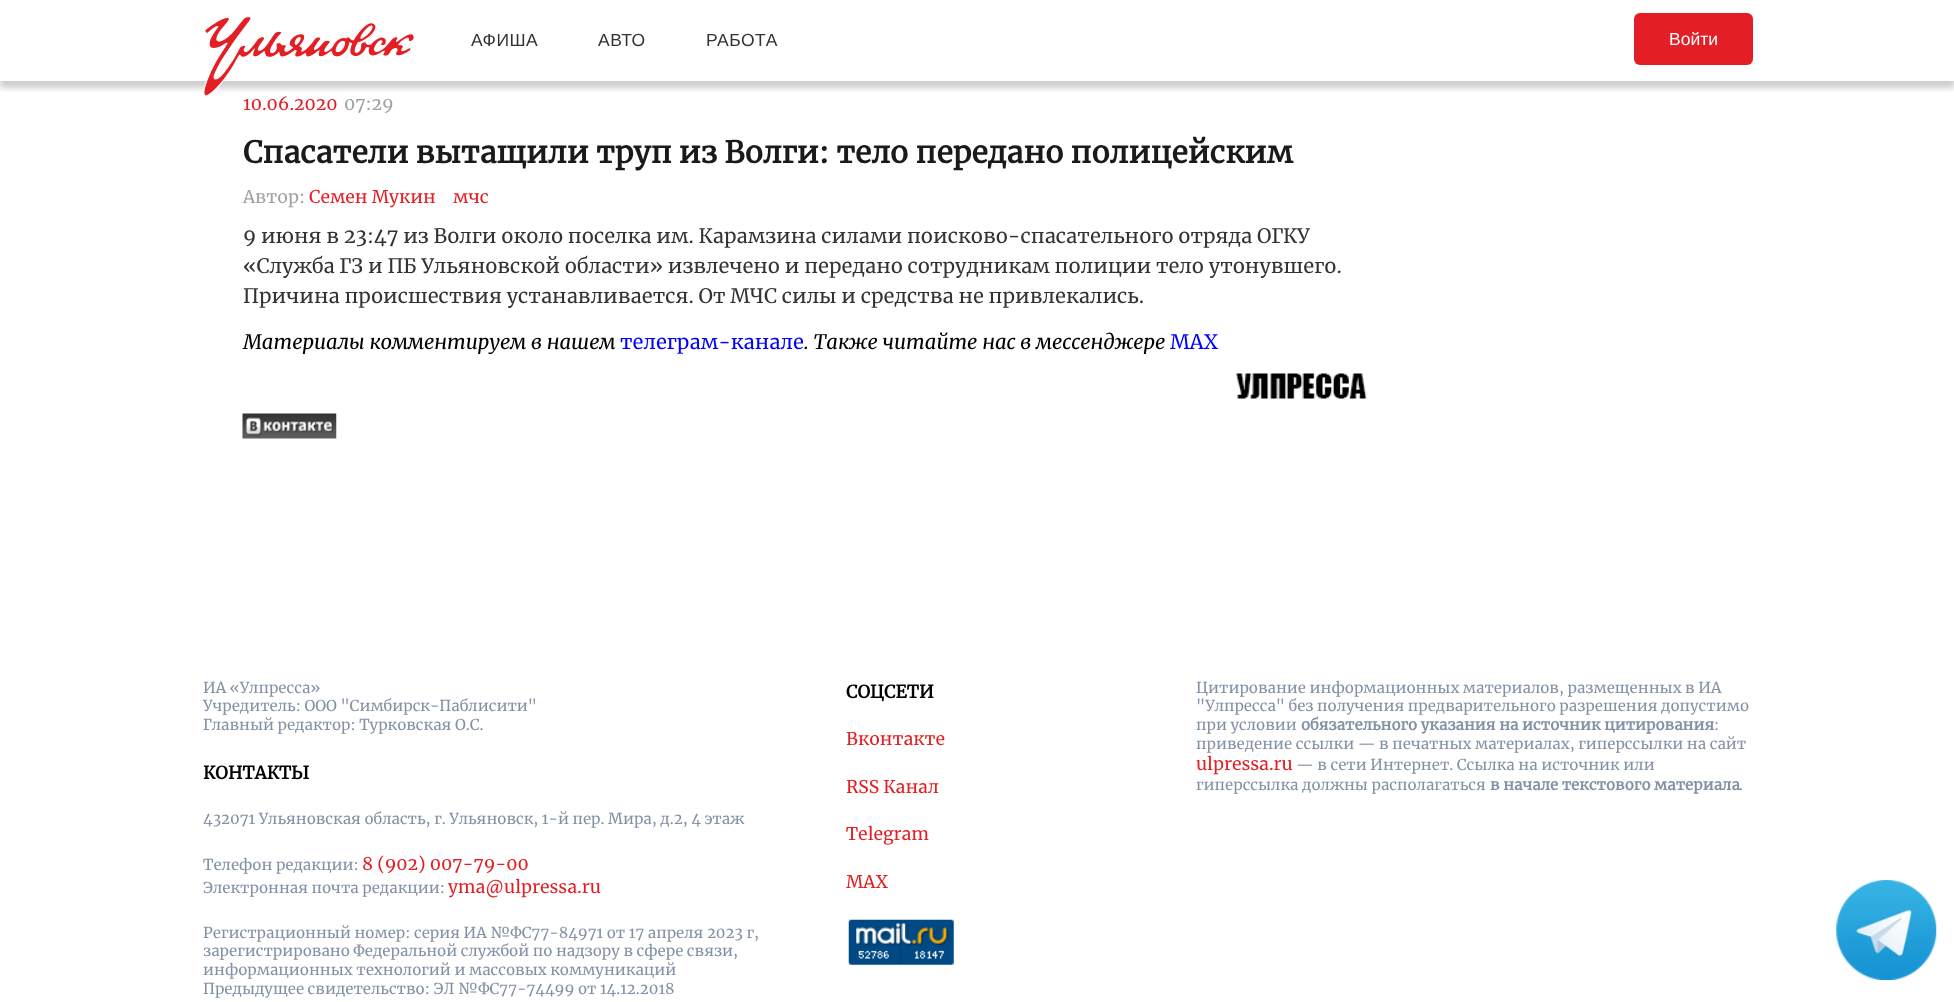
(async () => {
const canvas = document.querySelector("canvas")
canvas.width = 1954
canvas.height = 1002
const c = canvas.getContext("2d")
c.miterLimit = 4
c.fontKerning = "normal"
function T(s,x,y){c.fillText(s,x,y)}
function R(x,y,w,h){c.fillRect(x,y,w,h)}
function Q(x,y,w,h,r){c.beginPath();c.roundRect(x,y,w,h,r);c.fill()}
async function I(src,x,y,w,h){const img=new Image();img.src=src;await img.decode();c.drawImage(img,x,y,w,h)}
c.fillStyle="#fff"
R(0,0,1954,1002)
c.save()
c.beginPath()
c.rect(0,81,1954,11)
c.clip()
c.fillStyle="#00000033"
c.filter="blur(3px)"
c.beginPath()
c.rect(0,6,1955,82)
c.fill()
c.filter="none"
c.restore()
await I("1.png",203,16,212,80)
c.letterSpacing="0.5px"
c.font="17.5px Liberation Sans"
c.fillStyle="#333"
T("АФИША",471,46)
T("АВТО",598,46)
T("РАБОТА",706,46)
c.fillStyle="#e31e24"
Q(1634,13,119,52,6)
c.letterSpacing="0px"
c.fillStyle="#fff"
T("Войти",1669,45)
c.font="17.5px Merriweather"
c.fillStyle="#e31e24"
T("10.06.2020",243,110)
c.fillStyle="#a1a1a1"
T("07:29",344,110)
c.font="bold 30px Merriweather"
c.fillStyle="#1a1a1a"
T("Спасатели вытащили труп из Волги: тело передано полицейским",243,163)
c.font="17.5px Merriweather"
c.fillStyle="#a1a1a1"
T("Автор:",243,203)
c.fillStyle="#e31e24"
T("Семен Мукин",309,203)
T("мчс",453,203)
c.font="20px Merriweather"
c.fillStyle="#333"
T("9 июня в 23:47 из Волги около поселка им. Карамзина силами поисково-спасательного отряда ОГКУ",243,243)
T("«Служба ГЗ и ПБ Ульяновской области» извлечено и передано сотрудникам полиции тело утонувшего.",243,273)
T("Причина происшествия устанавливается. От МЧС силы и средства не привлекались.",243,303)
c.font="italic 20px Merriweather"
c.fillStyle="#000"
T("Материалы комментируем в нашем",243,349)
c.font="20px Merriweather"
c.fillStyle="#00f"
T("телеграм-канале",620,349)
c.font="italic 20px Merriweather"
c.fillStyle="#000"
T(". Также читайте нас в мессенджере",804,349)
c.font="20px Merriweather"
c.fillStyle="#00f"
T("MAX",1170,349)
await I("2.png",1236,373,131,26)
await I("3.png",242,413,95,26)
c.font="15px Merriweather"
c.fillStyle="#8391a5"
T("ИА «Улпресса»",203,693)
T("Учредитель: ООО \"Симбирск-Паблисити\"",203,711)
T("Главный редактор: Турковская О.С.",203,730)
c.font="bold 17.5px Merriweather"
c.fillStyle="#000"
T("КОНТАКТЫ",203,779)
c.font="15px Merriweather"
c.fillStyle="#8391a5"
T("432071 Ульяновская область, г. Ульяновск, 1-й пер. Мира, д.2, 4 этаж",203,824)
T("Телефон редакции:",203,870)
c.font="17.5px Merriweather"
c.fillStyle="#e31e24"
T("8 (902) 007-79-00",362,870)
c.font="15px Merriweather"
c.fillStyle="#8391a5"
T("Электронная почта редакции:",203,893)
c.font="17.5px Merriweather"
c.fillStyle="#e31e24"
T("yma@ulpressa.ru",448,893)
c.font="15px Merriweather"
c.fillStyle="#8391a5"
T("Регистрационный номер: серия ИА №ФС77-84971 от 17 апреля 2023 г,",203,938)
T("зарегистрировано Федеральной службой по надзору в сфере связи,",203,956)
T("информационных технологий и массовых коммуникаций",203,975)
T("Предыдущее свидетельство: ЭЛ №ФС77-74499 от 14.12.2018",203,994)
c.font="bold 17.5px Merriweather"
c.fillStyle="#000"
T("СОЦСЕТИ",846,698)
c.font="17.5px Merriweather"
c.fillStyle="#e31e24"
T("Вконтакте",846,745)
T("RSS Канал",846,793)
T("Telegram",846,840)
T("MAX",846,888)
await I("4.png",848,919,106,46)
c.font="15px Merriweather"
c.fillStyle="#8391a5"
T("Цитирование информационных материалов, размещенных в ИА",1196,693)
T("\"Улпресса\" без получения предварительного разрешения допустимо",1196,711)
T("при условии",1196,730)
c.font="bold 15px Merriweather"
T("обязательного указания на источник цитирования",1301,730)
c.font="15px Merriweather"
T(":",1714,730)
T("приведение ссылки — в печатных материалах, гиперссылки на cайт",1196,749)
c.font="17.5px Merriweather"
c.fillStyle="#e31e24"
T("ulpressa.ru",1196,770)
c.font="15px Merriweather"
c.fillStyle="#8391a5"
T("— в сети Интернет. Ссылка на источник или",1296,770)
T("гиперссылка должны располагаться",1196,790)
c.font="bold 15px Merriweather"
T("в начале текстового материала",1490,790)
c.font="15px Merriweather"
T(".",1739,790)
await I("5.png",1836,880,101,100)
})()
